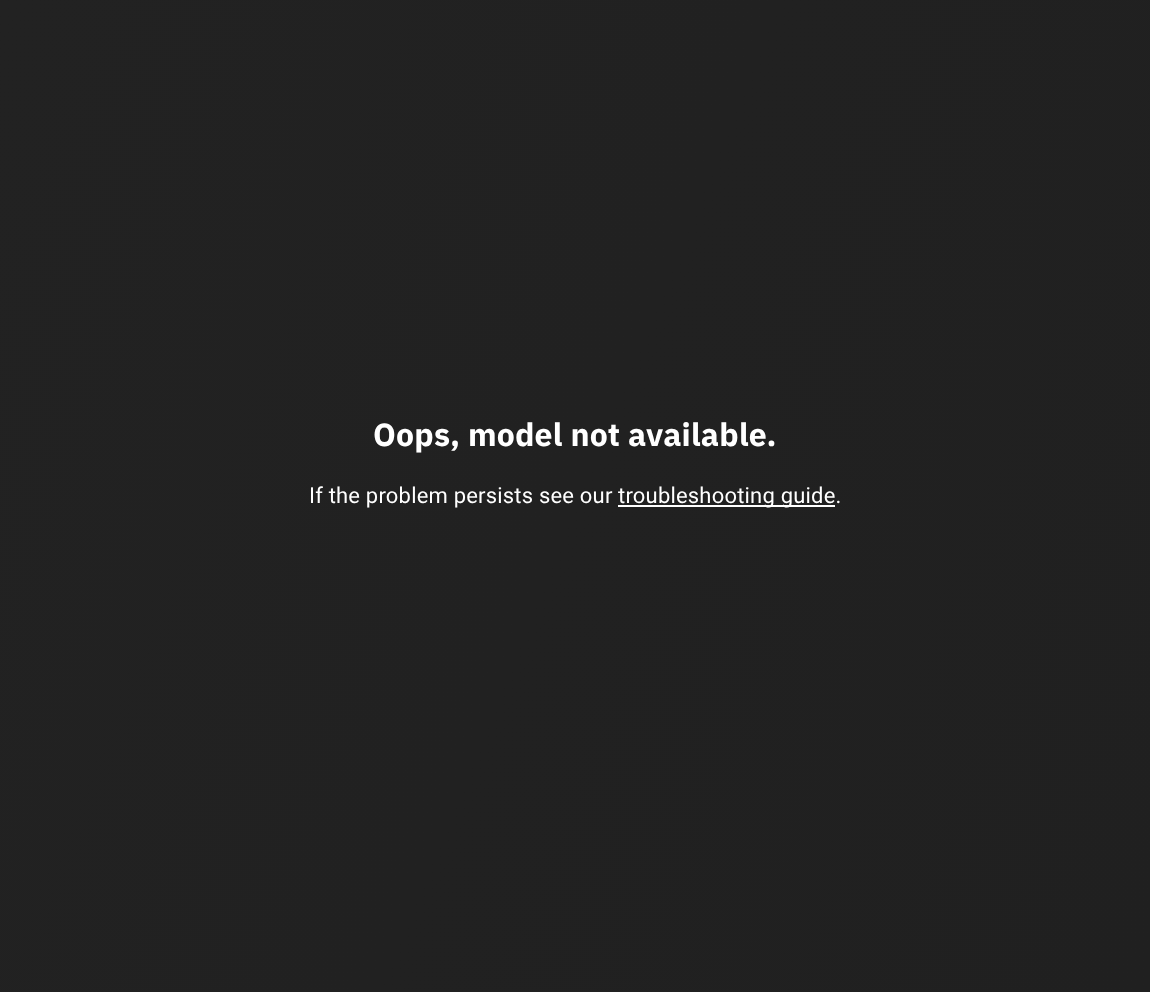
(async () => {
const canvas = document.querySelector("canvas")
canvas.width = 1150
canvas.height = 992
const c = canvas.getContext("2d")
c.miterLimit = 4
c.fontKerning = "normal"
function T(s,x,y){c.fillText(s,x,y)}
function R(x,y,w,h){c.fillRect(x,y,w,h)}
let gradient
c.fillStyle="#fff"
R(0,0,1150,992)
gradient = c.createLinearGradient(-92,227,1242,765)
gradient.addColorStop(0,"#222")
gradient.addColorStop(1,"#202020")
c.fillStyle = gradient
R(0,0,1150,992)
c.letterSpacing="0.2px"
c.font="bold 32px IBM Plex Sans"
c.fillStyle="#fff"
T("Oops, model not available.",373,446)
c.font="22px Roboto"
T("If the problem persists see our",309,503)
R(618,505,217,2)
T("troubleshooting guide.",618,503)
})()
